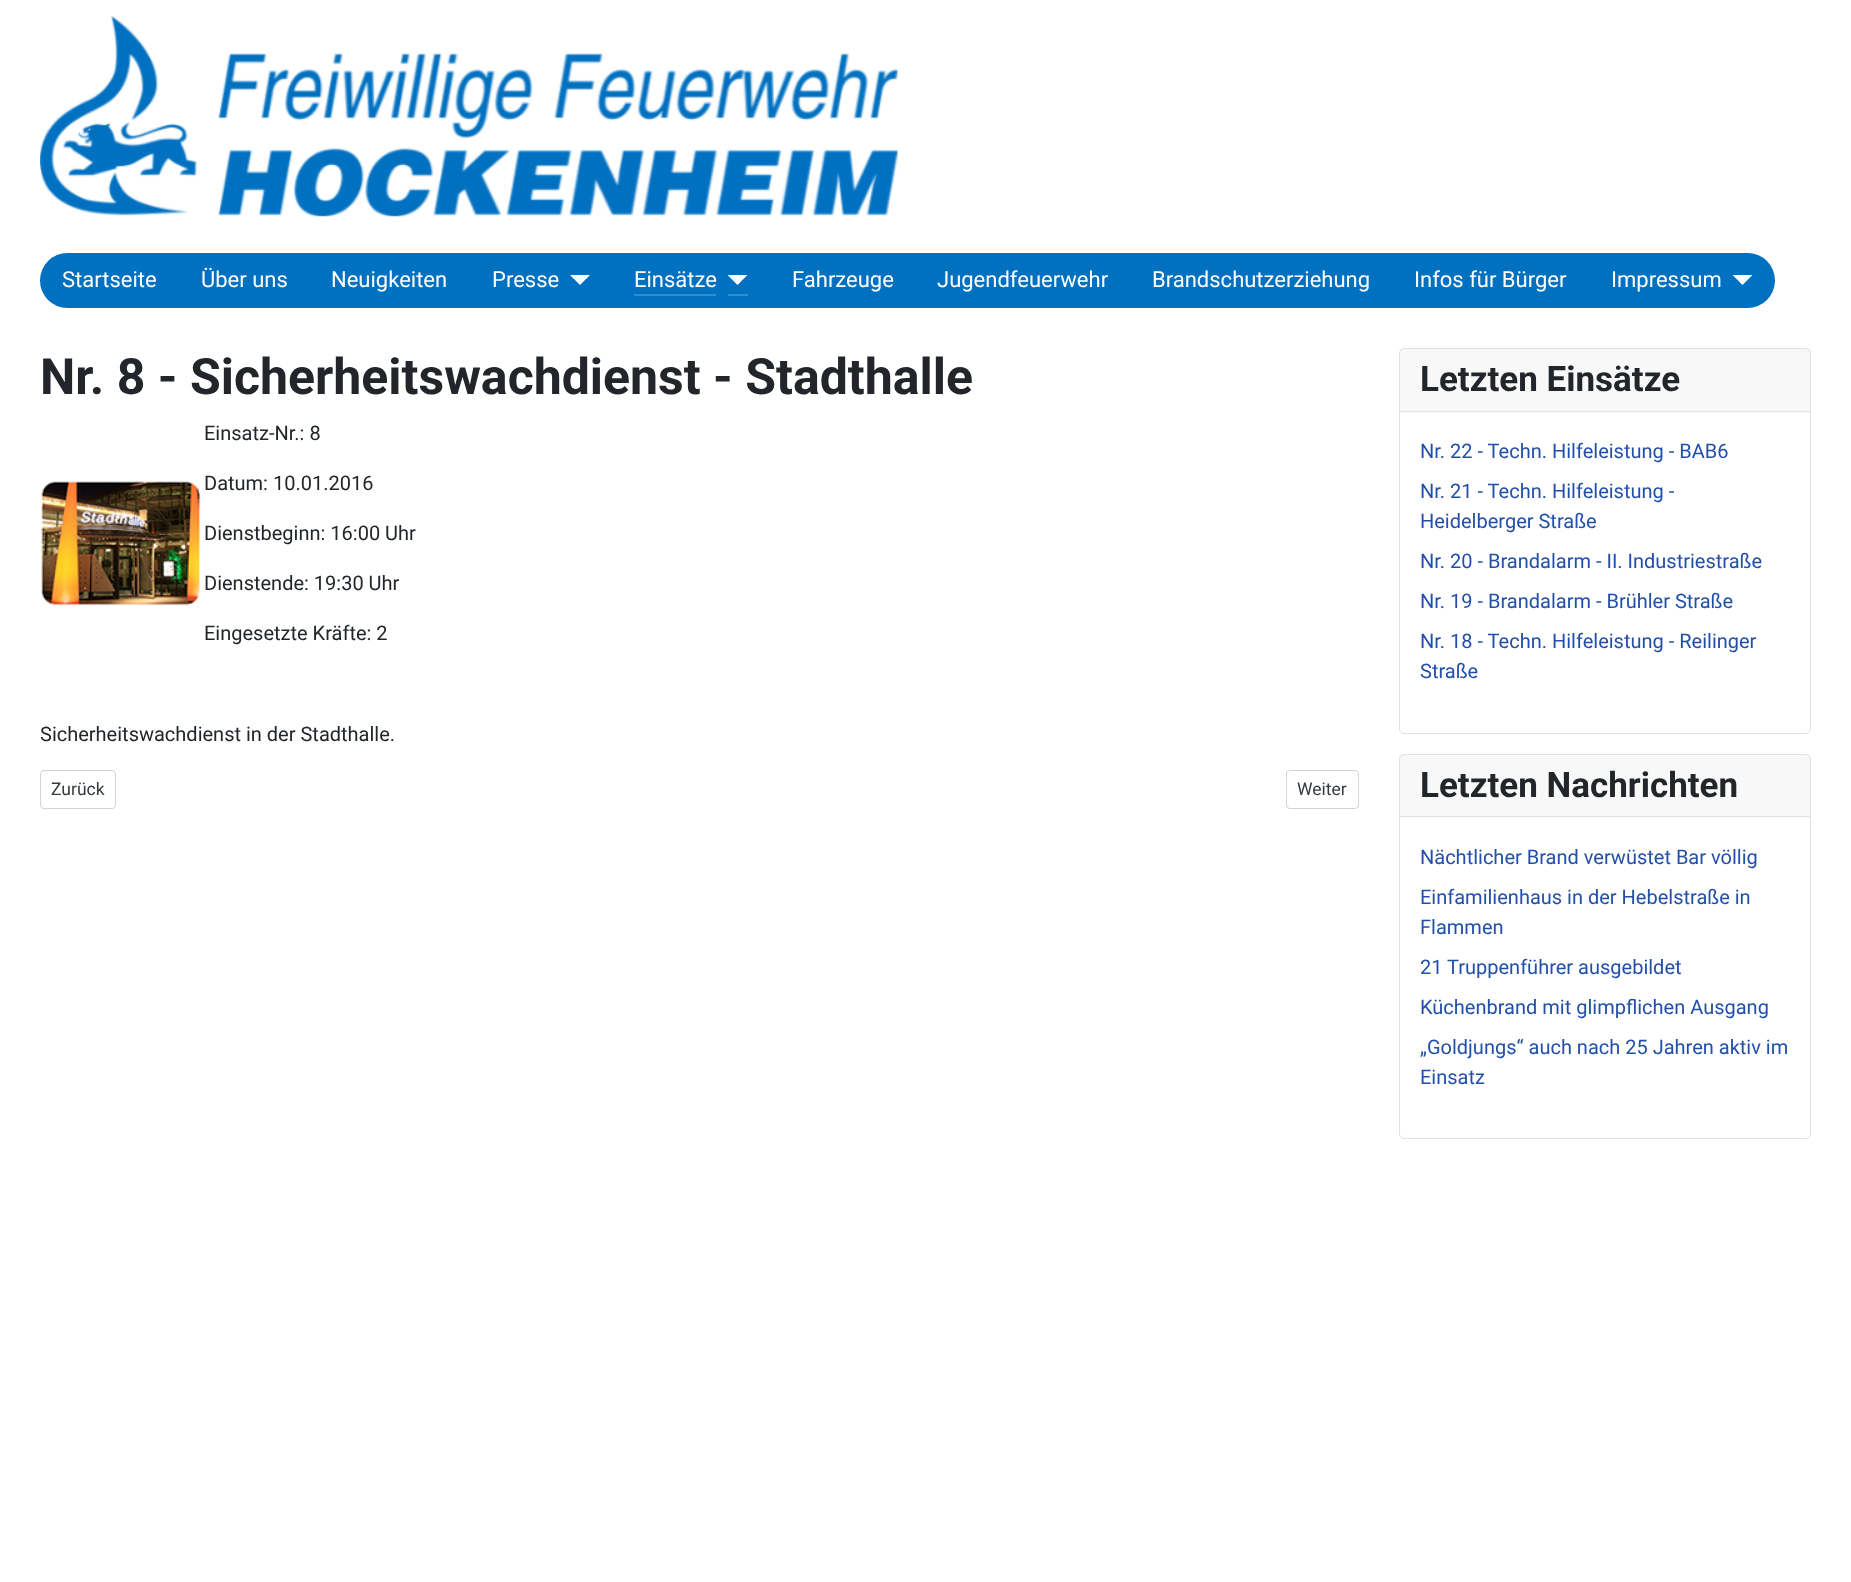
(async () => {
const canvas = document.querySelector("canvas")
canvas.width = 1851
canvas.height = 1582
const c = canvas.getContext("2d")
c.miterLimit = 4
c.fontKerning = "normal"
function T(s,x,y){c.fillText(s,x,y)}
function R(x,y,w,h){c.fillRect(x,y,w,h)}
function Q(x,y,w,h,r){c.beginPath();c.roundRect(x,y,w,h,r);c.fill()}
async function I(src,x,y,w,h){const img=new Image();img.src=src;await img.decode();c.drawImage(img,x,y,w,h)}
let path
c.fillStyle="#fff"
R(0,0,1851,1582)
await I("1.png",40,16,858,201)
c.fillStyle="#0070c0"
Q(40,253,1735,55,27.5)
c.font="22px Roboto"
c.fillStyle="#fff"
T("Startseite",62,287)
T("Über uns",201,287)
T("Neuigkeiten",331,287)
T("Presse",492,287)
path = new Path2D("M570 275h20l-10 10z")
c.fill(path)
T("Einsätze",634,287)
c.fillStyle="#338dcd"
R(634,294,82,2)
c.fillStyle="#fff"
path = new Path2D("M727.5 275h20l-10 10z")
c.fill(path)
c.fillStyle="#338dcd"
R(728,294,20,2)
c.fillStyle="#fff"
T("Fahrzeuge",792,287)
T("Jugendfeuerwehr",937,287)
T("Brandschutzerziehung",1152,287)
T("Infos für Bürger",1414,287)
T("Impressum",1611,287)
path = new Path2D("M1732.5 275h20l-10 10z")
c.fill(path)
c.font="bold 50px Roboto"
c.fillStyle="#22262a"
T("Nr. 8 - Sicherheitswachdienst - Stadthalle",40,394)
await I("2.png",41,481,160,125)
c.font="20px Roboto"
T("Einsatz-Nr.: 8",204,440)
T("Datum: 10.01.2016",204,490)
T("Dienstbeginn: 16:00 Uhr",204,540)
T("Dienstende: 19:30 Uhr",204,590)
T("Eingesetzte Kräfte: 2",204,640)
T("Sicherheitswachdienst in der Stadthalle.",40,741)
c.beginPath()
c.roundRect(40.5,770.5,75,38,3.5)
c.strokeStyle="#ced4da"
c.stroke()
c.font="17.5px Roboto"
c.fillStyle="#353b41"
T("Zurück",51,795)
c.beginPath()
c.roundRect(1286.5,770.5,72,38,3.5)
c.stroke()
T("Weiter",1297,795)
c.beginPath()
c.roundRect(1399.5,348.5,411,385,4.5)
c.strokeStyle="#dfe3e7"
c.stroke()
c.fillStyle="#22262a08"
R(1400,349,410,64)
c.fillStyle="#dfe3e7"
R(1400,411,410,1)
c.font="bold 35px Roboto"
c.fillStyle="#22262a"
T("Letzten Einsätze",1420,391)
c.font="20px Roboto"
c.fillStyle="#224faa"
T("Nr. 22 - Techn. Hilfeleistung - BAB6",1420,458)
T("Nr. 21 - Techn. Hilfeleistung -",1420,498)
T("Heidelberger Straße",1420,528)
T("Nr. 20 - Brandalarm - II. Industriestraße",1420,568)
T("Nr. 19 - Brandalarm - Brühler Straße",1420,608)
T("Nr. 18 - Techn. Hilfeleistung - Reilinger",1420,648)
T("Straße",1420,678)
c.beginPath()
c.roundRect(1399.5,754.5,411,384,4.5)
c.stroke()
c.fillStyle="#22262a08"
R(1400,755,410,63)
c.fillStyle="#dfe3e7"
R(1400,816,410,1)
c.font="bold 35px Roboto"
c.fillStyle="#22262a"
T("Letzten Nachrichten",1420,797)
c.font="20px Roboto"
c.fillStyle="#224faa"
T("Nächtlicher Brand verwüstet Bar völlig",1420,864)
T("Einfamilienhaus in der Hebelstraße in",1420,904)
T("Flammen",1420,934)
T("21 Truppenführer ausgebildet",1420,974)
T("Küchenbrand mit glimpflichen Ausgang",1420,1014)
T("„Goldjungs“ auch nach 25 Jahren aktiv im",1420,1054)
T("Einsatz",1420,1084)
})()
